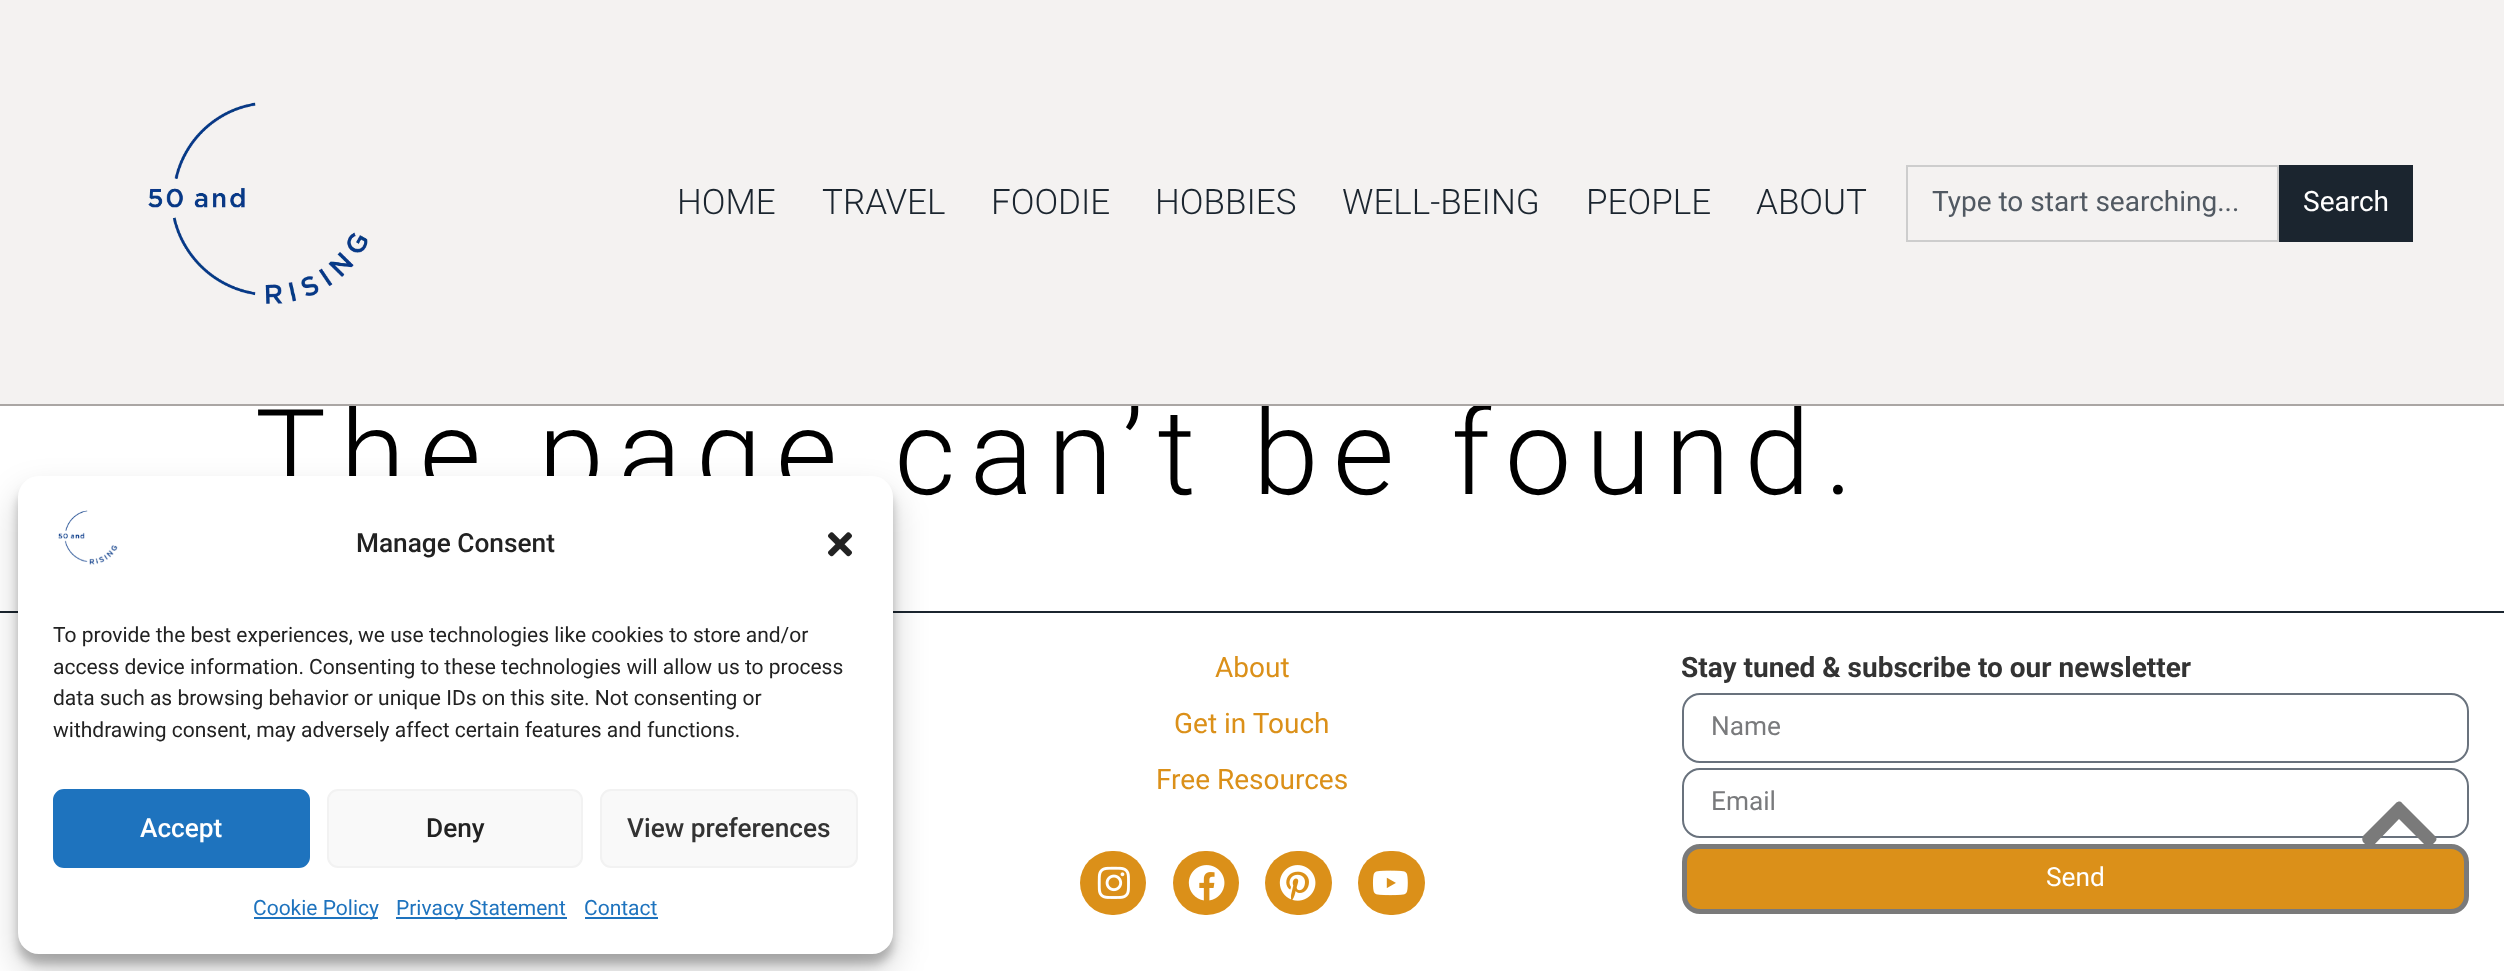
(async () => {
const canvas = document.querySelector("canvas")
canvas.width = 2504
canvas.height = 971
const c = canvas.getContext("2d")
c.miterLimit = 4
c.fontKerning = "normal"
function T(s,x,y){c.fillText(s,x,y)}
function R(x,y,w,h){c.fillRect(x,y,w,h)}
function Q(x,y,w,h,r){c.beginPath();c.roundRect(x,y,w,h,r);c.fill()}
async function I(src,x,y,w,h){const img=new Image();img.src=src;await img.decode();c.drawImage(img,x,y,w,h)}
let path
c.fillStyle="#fff"
R(0,0,2504,971)
c.letterSpacing="14px"
c.font="300 119px Roboto"
c.fillStyle="#000"
T("The page can’t be found.",255,494)
c.fillStyle="#f4f2f1"
R(0,0,2504,404)
c.fillStyle="#aaa6a4"
R(0,404,2504,2)
await I("1.png",148,102,220,202)
c.letterSpacing="0px"
c.font="300 35px Roboto"
c.fillStyle="#1b252f"
T("HOME",677,214)
T("TRAVEL",822,214)
T("FOODIE",991,214)
T("HOBBIES",1155,214)
T("WELL-BEING",1342,214)
T("PEOPLE",1586,214)
T("ABOUT",1756,214)
c.strokeStyle="#cdcdcd"
c.lineWidth=2
c.strokeRect(1907,166,371,75)
c.font="28px Roboto"
c.fillStyle="#515962"
T("Type to start searching...",1932,211)
c.fillStyle="#1b252f"
R(2279,165,134,77)
c.fillStyle="#fff"
T("Search",2303,211)
c.beginPath()
c.roundRect(1683,769,785,68,17)
c.strokeStyle="#69727d"
c.stroke()
c.fillStyle="#db9019"
c.beginPath()
c.roundRect(1684.5,846.5,782,65,15.5)
c.fill()
c.strokeStyle="#7a7a7a"
c.lineWidth=5
c.stroke()
c.fillStyle="#7a7a7a"
path = new Path2D("M2402 803l33 33c2 2 2 4 0 6l-4 4c-1 1-4 1-5 0l-27-27l-26 27c-2 1-4 1-6 0l-4-4c-1-2-1-4 0-6l33-33c2-2 5-2 6 0z")
c.fill(path)
c.fillStyle="#1b252f"
R(0,611,2504,2)
c.fillStyle="#0000003b"
c.filter="blur(5px)"
c.beginPath()
c.roundRect(18,487,875,477,21)
c.fill()
c.filter="none"
c.fillStyle="#00000030"
c.filter="blur(17.5px)"
c.beginPath()
c.roundRect(18,494,875,477,21)
c.fill()
c.filter="none"
c.fillStyle="#fff"
Q(18,476,875,478,21)
await I("2.png",58,510,60,55)
c.font="500 26.25px Roboto"
c.fillStyle="#222"
T("Manage Consent",356,552)
await I("3.png",828,532,24,25)
c.font="21px Roboto"
T("To provide the best experiences, we use technologies like cookies to store and/or",53,642)
T("access device information. Consenting to these technologies will allow us to process",53,674)
T("data such as browsing behavior or unique IDs on this site. Not consenting or",53,705)
T("withdrawing consent, may adversely affect certain features and functions.",53,737)
c.fillStyle="#1e73be"
c.beginPath()
c.roundRect(54,790,255,77,10)
c.fill()
c.strokeStyle="#1e73be"
c.lineWidth=2
c.stroke()
c.font="500 26.25px Roboto"
c.fillStyle="#fff"
T("Accept",140,837)
c.fillStyle="#f9f9f9"
c.beginPath()
c.roundRect(328,790,254,77,10)
c.fill()
c.strokeStyle="#f2f2f2"
c.stroke()
c.fillStyle="#222"
T("Deny",426,837)
c.fillStyle="#f9f9f9"
c.beginPath()
c.roundRect(601,790,256,77,10)
c.fill()
c.stroke()
c.fillStyle="#333"
T("View preferences",627,837)
c.fillStyle="#1e73be"
R(254,917,124,2)
c.font="21px Roboto"
T("Cookie Policy",253,915)
R(396,917,171,2)
T("Privacy Statement",396,915)
T("Contact",584,915)
R(585,917,73,2)
c.font="28px Roboto"
c.fillStyle="#db9019"
T("About",1215,677)
T("Get in Touch",1174,733)
T("Free Resources",1156,789)
Q(1080,851,66,64,32)
await I("4.png",1097,866,33,33)
Q(1173,851,66,64,32)
await I("5.png",1188,865,37,36)
Q(1265,851,67,64,32)
await I("6.png",1279,865,37,36)
Q(1358,851,67,64,32)
await I("7.png",1372,870,36,26)
c.font="bold 28px Roboto"
c.fillStyle="#333"
T("Stay tuned & subscribe to our newsletter",1681,677)
c.beginPath()
c.roundRect(1683,694,785,68,17)
c.strokeStyle="#69727d"
c.stroke()
c.font="26.25px Roboto"
c.fillStyle="#797a7c"
T("Name",1711,735)
T("Email",1711,810)
c.fillStyle="#fff"
T("Send",2046,886)
})()
